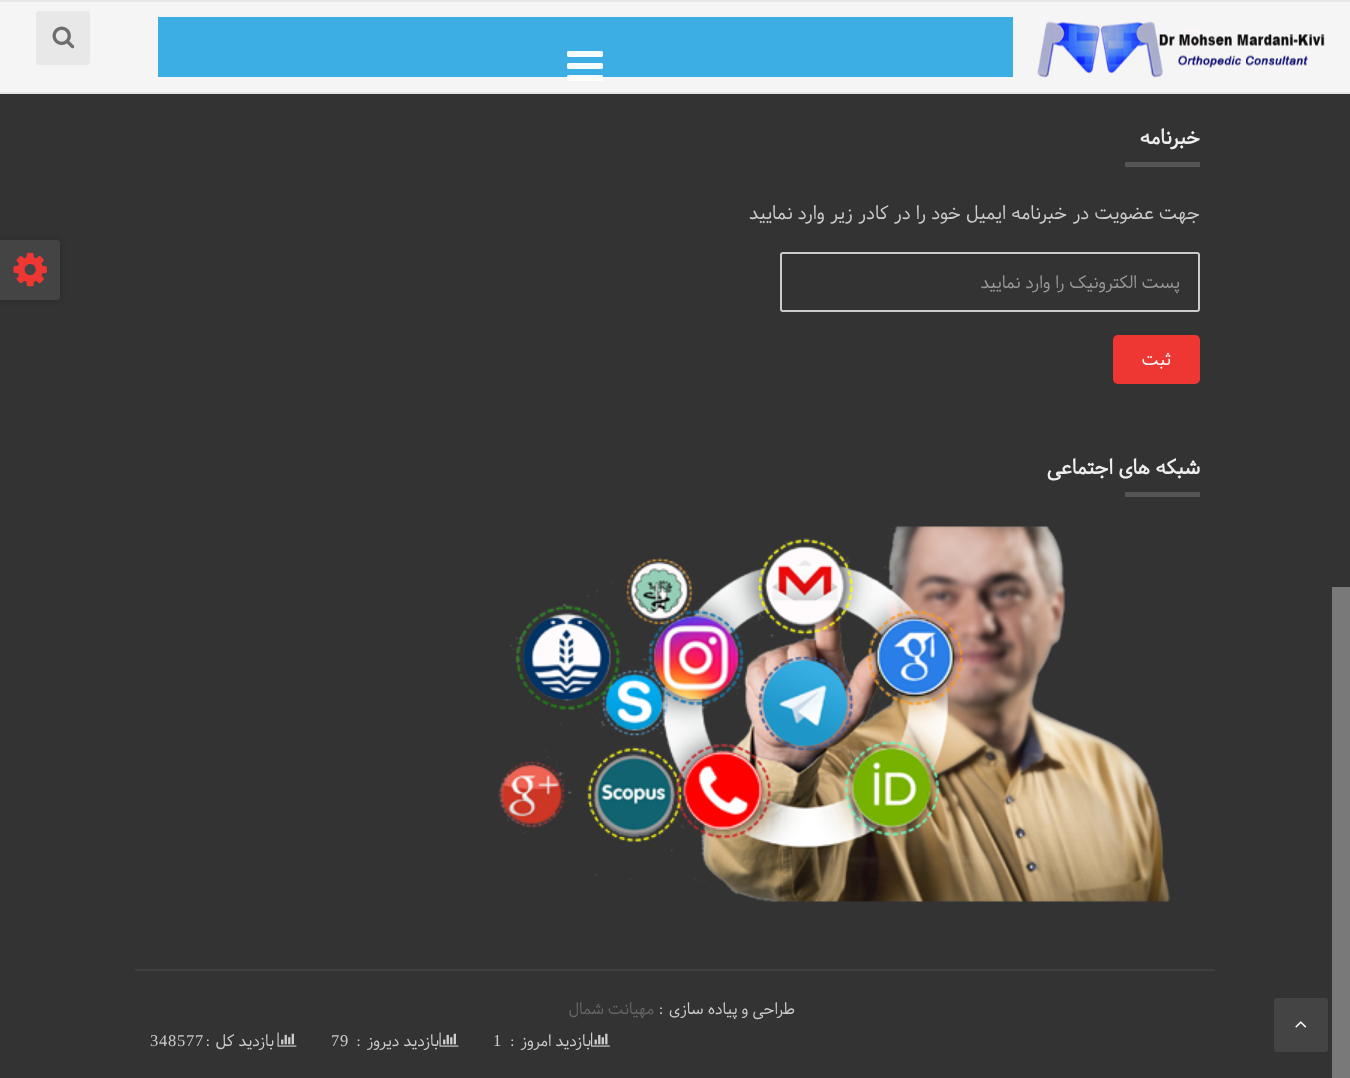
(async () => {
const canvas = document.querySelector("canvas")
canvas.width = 1350
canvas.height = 1078
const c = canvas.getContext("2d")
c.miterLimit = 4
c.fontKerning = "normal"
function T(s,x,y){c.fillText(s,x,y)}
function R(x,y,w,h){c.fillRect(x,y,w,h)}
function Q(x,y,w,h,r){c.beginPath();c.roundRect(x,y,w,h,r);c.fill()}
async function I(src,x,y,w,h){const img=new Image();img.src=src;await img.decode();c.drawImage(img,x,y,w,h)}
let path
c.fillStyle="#333"
R(0,0,1350,1078)
c.fillStyle="#797979"
R(1332,587,18,491)
c.fillStyle="#e8e8e8"
R(0,0,1350,2)
c.fillStyle="#e5e5e5"
R(0,92,1350,2)
c.fillStyle="#f5f5f5"
R(0,2,1350,90)
await I("4.png",1180,29,20,16)
await I("1.png",1037,21,288,57)
c.fillStyle="#32aae1f2"
R(158,17,855,60)
await I("2.png",567,51,36,30)
c.fillStyle="#e8e8e8"
Q(36,11,54,54,3)
await I("3.png",52,26,23,23)
c.direction="rtl"
c.font="bold 21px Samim"
c.fillStyle="#eee"
T("خبرنامه",1200,144)
c.fillStyle="#555"
R(1125,162,75,5)
c.font="19.5px Samim"
c.fillStyle="#ccc"
T("جهت عضویت در خبرنامه ایمیل خود را در کادر زیر وارد نمایید",1200,219)
c.fillStyle="#2f2f2f"
path = new Path2D("M783 255h414c1 0 1 1 1 1v55l1-1v-46c0-3 2-10-1-10h-414c-2 0-2 1-2 2z")
c.fill(path)
c.beginPath()
c.roundRect(781,253,418,58,2)
c.strokeStyle="#ccc"
c.lineWidth=2
c.stroke()
c.font="18px Samim"
c.fillStyle="#999"
T("پست الکترونیک را وارد نمایید",1180,288)
c.fillStyle="#ee3733"
Q(1113,335,87,49,5)
c.fillStyle="#fff"
T("ثبت",1171,365)
c.font="bold 21px Samim"
c.fillStyle="#eee"
T("شبکه های اجتماعی",1200,474)
c.fillStyle="#555"
R(1125,492,75,5)
await I("5.png",498,526,673,376)
c.fillStyle="#3f3f3f"
R(135,969,1080,2)
c.letterSpacing="0.75px"
c.wordSpacing="-1px"
c.font="16.5px Samim"
c.fillStyle="#ccc"
T("طراحی و پیاده سازی :",795,1014)
c.fillStyle="#666"
T("مهیانت شمال",654,1014)
await I("6.png",591,1032,19,15)
c.fillStyle="#ccc"
T("بازدید امروز :",591,1046)
c.wordSpacing="0px"
c.direction="ltr"
c.font="16.5px Liberation Serif"
T("1",493,1046)
await I("7.png",439,1032,20,15)
c.wordSpacing="-1px"
c.direction="rtl"
c.font="16.5px Samim"
T("بازدید دیروز :",439,1046)
c.wordSpacing="0px"
c.direction="ltr"
c.font="16.5px Liberation Serif"
T("79",331,1046)
await I("7.png",277,1032,20,15)
T("348577",150,1046)
c.wordSpacing="-1px"
c.direction="rtl"
c.font="16.5px Samim"
T("بازدید کل :",274,1046)
c.fillStyle="#00000033"
c.filter="blur(3px)"
c.beginPath()
c.roundRect(0,240,60,60,3)
c.fill()
c.filter="none"
c.fillStyle="#444"
c.beginPath()
c.roundRect(0,240,60,60,[0,3,3,0])
c.fill()
await I("8.png",13,252,34,35)
Q(1274,998,54,54,3)
await I("9.png",1295,1021,12,7)
})()
